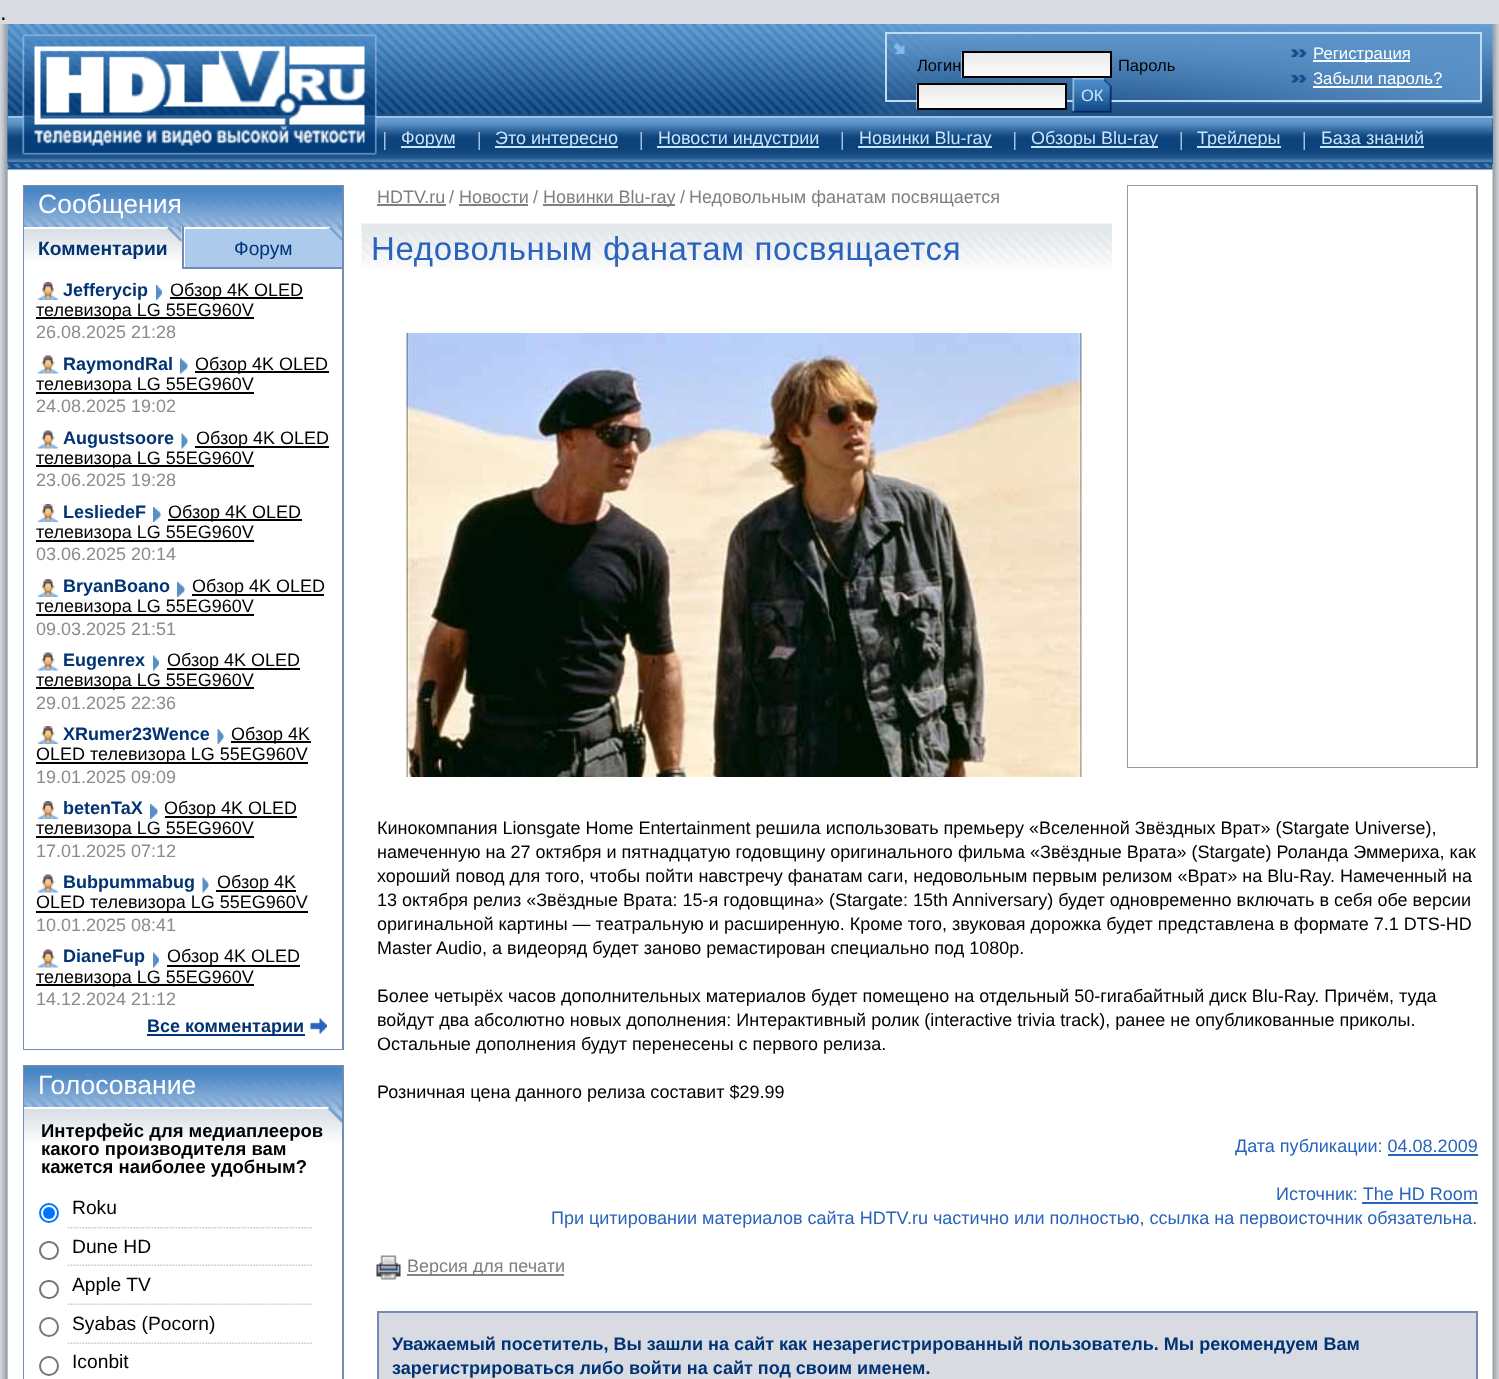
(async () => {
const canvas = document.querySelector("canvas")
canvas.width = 1499
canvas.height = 1379
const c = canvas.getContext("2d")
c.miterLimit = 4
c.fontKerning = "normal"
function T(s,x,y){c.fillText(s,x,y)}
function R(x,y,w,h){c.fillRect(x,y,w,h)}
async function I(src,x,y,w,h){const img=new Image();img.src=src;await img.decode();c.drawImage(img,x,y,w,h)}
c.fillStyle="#d8dce2"
R(0,0,1499,1379)
c.font="24px Liberation Sans"
c.fillStyle="#000"
T(".",0,20)
c.fillStyle="#fff"
R(8,24,1485,1355)
await I("1.png",0,24,8,1355)
await I("2.png",1492,24,7,1355)
await I("3.png",7,24,1486,146)
c.fillStyle="#1f5388"
R(13,118,1480,46)
await I("12.png",7,117,1486,47)
c.fillStyle="#a0c2e2"
R(8,116,1485,2)
await I("4.png",22,34,355,121)
await I("5.png",851,24,642,92)
c.strokeStyle="#bedcf6"
c.lineWidth=2
c.strokeRect(886,33,595,68)
await I("6.png",894,43,11,11)
c.font="16.5px Liberation Sans"
c.fillStyle="#000"
T("Логин",917,71)
await I("7.png",961,52,149,26)
c.strokeStyle="#000"
c.strokeRect(963,52,148,25)
T("Пароль",1118,71)
await I("8.png",916,84,149,26)
c.strokeRect(918,84,148,25)
await I("9.png",1072,78,40,35)
c.fillStyle="#c7e3fe"
T("ОК",1081,101)
await I("10.png",1291,49,16,8)
c.fillStyle="#fff"
R(1313,60,97,2)
c.font="16.75px Liberation Sans"
T("Регистрация",1313,59)
await I("11.png",1291,75,16,8)
R(1313,86,129,2)
T("Забыли пароль?",1313,84)
await I("13.png",384,132,2,18)
c.fillStyle="#c8e4ff"
R(401,146,54,2)
c.font="18px Liberation Sans"
c.fillStyle="#c7e3fe"
T("Форум",401,144)
await I("14.png",478,132,2,18)
c.fillStyle="#c8e4ff"
R(495,146,123,2)
c.fillStyle="#c7e3fe"
T("Это интересно",495,144)
await I("15.png",640,132,2,18)
c.fillStyle="#c8e4ff"
R(657,146,162,2)
c.fillStyle="#c7e3fe"
T("Новости индустрии",658,144)
await I("16.png",841,132,2,18)
c.fillStyle="#c8e4ff"
R(858,146,134,2)
c.fillStyle="#c7e3fe"
T("Новинки Blu-ray",859,144)
await I("17.png",1014,132,2,18)
c.fillStyle="#c8e4ff"
R(1031,146,127,2)
c.fillStyle="#c7e3fe"
T("Обзоры Blu-ray",1031,144)
await I("18.png",1180,132,2,18)
c.fillStyle="#c8e4ff"
R(1197,146,84,2)
c.fillStyle="#c7e3fe"
T("Трейлеры",1197,144)
await I("16.png",1303,132,2,18)
T("База знаний",1321,144)
c.fillStyle="#c8e4ff"
R(1320,146,104,2)
c.strokeStyle="#728db5"
c.strokeRect(24,186,319,863)
c.fillStyle="#4984c3"
R(24,186,318,6)
await I("19.png",24,192,318,35)
c.font="26.5px Liberation Sans"
c.fillStyle="#fff"
T("Сообщения",38,213)
R(24,262,1,7)
await I("20.png",24,229,158,33)
R(24,227,1,2)
c.fillStyle="#728db5"
R(182,227,2,42)
c.font="bold 19.25px Liberation Sans"
c.fillStyle="#003274"
T("Комментарии",38,255)
await I("21.png",166,226,16,16)
c.fillStyle="#abcaec"
R(185,229,157,38)
await I("22.png",327,226,15,15)
c.font="19.25px Liberation Sans"
c.fillStyle="#003274"
T("Форум",234,255)
c.fillStyle="#fff"
R(24,269,318,780)
c.fillStyle="#728db5"
R(184,267,158,2)
await I("23.png",37,282,22,18)
c.font="bold 18px Liberation Sans"
c.fillStyle="#003274"
T("Jefferycip",63,296)
await I("24.png",156,285,6,15)
c.fillStyle="#000"
R(170,297,133,2)
c.font="18px Liberation Sans"
T("Обзор 4K OLED",170,296)
R(36,317,218,2)
T("телевизора LG 55EG960V",36,316)
c.fillStyle="#898c8e"
T("26.08.2025 21:28",36,338)
await I("25.png",37,355,22,19)
c.font="bold 18px Liberation Sans"
c.fillStyle="#003274"
T("RaymondRal",63,370)
await I("26.png",180,358,8,16)
c.fillStyle="#000"
R(195,371,134,2)
c.font="18px Liberation Sans"
T("Обзор 4K OLED",195,370)
R(36,392,218,2)
T("телевизора LG 55EG960V",36,390)
c.fillStyle="#898c8e"
T("24.08.2025 19:02",36,412)
await I("25.png",37,430,22,19)
c.font="bold 18px Liberation Sans"
c.fillStyle="#003274"
T("Augustsoore",63,444)
await I("27.png",181,433,7,16)
c.fillStyle="#000"
R(195,446,134,2)
c.font="18px Liberation Sans"
T("Обзор 4K OLED",196,444)
R(36,465,218,2)
T("телевизора LG 55EG960V",36,464)
c.fillStyle="#898c8e"
T("23.06.2025 19:28",36,486)
await I("23.png",37,504,22,18)
c.font="bold 18px Liberation Sans"
c.fillStyle="#003274"
T("LesliedeF",63,518)
await I("28.png",153,507,8,15)
c.fillStyle="#000"
R(168,519,134,2)
c.font="18px Liberation Sans"
T("Обзор 4K OLED",168,518)
R(36,540,218,2)
T("телевизора LG 55EG960V",36,538)
c.fillStyle="#898c8e"
T("03.06.2025 20:14",36,560)
await I("23.png",37,579,22,18)
c.font="bold 18px Liberation Sans"
c.fillStyle="#003274"
T("BryanBoano",63,592)
await I("28.png",177,582,8,15)
c.fillStyle="#000"
R(192,594,132,2)
c.font="18px Liberation Sans"
T("Обзор 4K OLED",192,592)
R(36,614,218,2)
T("телевизора LG 55EG960V",36,612)
c.fillStyle="#898c8e"
T("09.03.2025 21:51",36,635)
await I("25.png",37,652,22,19)
c.font="bold 18px Liberation Sans"
c.fillStyle="#003274"
T("Eugenrex",63,666)
await I("29.png",153,655,6,16)
c.fillStyle="#000"
R(167,668,133,2)
c.font="18px Liberation Sans"
T("Обзор 4K OLED",167,666)
R(36,687,218,2)
T("телевизора LG 55EG960V",36,686)
c.fillStyle="#898c8e"
T("29.01.2025 22:36",36,709)
await I("23.png",37,726,22,18)
c.font="bold 18px Liberation Sans"
c.fillStyle="#003274"
T("XRumer23Wence",63,740)
await I("30.png",217,729,7,15)
c.fillStyle="#000"
R(231,741,80,2)
c.font="18px Liberation Sans"
T("Обзор 4K",231,740)
R(36,762,272,2)
T("OLED телевизора LG 55EG960V",36,760)
c.fillStyle="#898c8e"
T("19.01.2025 09:09",36,783)
await I("23.png",37,801,22,18)
c.font="bold 18px Liberation Sans"
c.fillStyle="#003274"
T("betenTaX",63,814)
await I("28.png",150,804,8,15)
c.fillStyle="#000"
R(165,816,132,2)
c.font="18px Liberation Sans"
T("Обзор 4K OLED",164,814)
R(36,836,218,2)
T("телевизора LG 55EG960V",36,834)
c.fillStyle="#898c8e"
T("17.01.2025 07:12",36,857)
await I("25.png",37,874,22,19)
c.font="bold 18px Liberation Sans"
c.fillStyle="#003274"
T("Bubpummabug",63,888)
await I("27.png",202,877,7,16)
c.fillStyle="#000"
R(216,890,80,2)
c.font="18px Liberation Sans"
T("Обзор 4K",217,888)
R(36,911,272,2)
T("OLED телевизора LG 55EG960V",36,908)
c.fillStyle="#898c8e"
T("10.01.2025 08:41",36,931)
await I("25.png",37,949,22,19)
c.font="bold 18px Liberation Sans"
c.fillStyle="#003274"
T("DianeFup",63,962)
await I("29.png",153,952,6,16)
c.fillStyle="#000"
R(167,965,133,2)
c.font="18px Liberation Sans"
T("Обзор 4K OLED",167,962)
R(36,984,218,2)
T("телевизора LG 55EG960V",36,983)
c.fillStyle="#898c8e"
T("14.12.2024 21:12",36,1005)
c.fillStyle="#023477"
R(147,1034,158,2)
c.font="bold 18px Liberation Sans"
c.fillStyle="#003274"
T("Все комментарии",147,1032)
await I("31.png",310,1018,17,16)
c.strokeRect(24,1066,319,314)
await I("32.png",24,1066,318,41)
c.font="26.5px Liberation Sans"
c.fillStyle="#fff"
T("Голосование",38,1094)
R(24,1143,1,236)
await I("33.png",24,1109,318,34)
R(24,1107,1,2)
await I("34.png",327,1107,15,15)
c.font="bold 18.5px Liberation Sans"
c.fillStyle="#000"
T("Интерфейс для медиаплееров",41,1137)
T("какого производителя вам",41,1155)
T("кажется наиболее удобным?",41,1173)
c.beginPath()
c.arc(49,1213,9,0,7)
c.strokeStyle="#0075ff"
c.stroke()
c.fillStyle="#0075ff"
c.beginPath()
c.arc(49,1213,6,0,7)
c.fill()
await I("35.png",67,1227,245,2)
c.font="19.25px Liberation Sans"
c.fillStyle="#000"
T("Roku",72,1214)
c.beginPath()
c.roundRect(40,1242,18,17,8.5)
c.strokeStyle="#767676"
c.stroke()
await I("36.png",67,1264,245,2)
T("Dune HD",72,1253)
c.beginPath()
c.roundRect(40,1281,18,17,8.5)
c.stroke()
await I("37.png",67,1303,245,2)
T("Apple TV",72,1291)
c.beginPath()
c.arc(49,1327,9,0,7)
c.stroke()
await I("36.png",67,1342,245,2)
T("Syabas (Pocorn)",72,1330)
c.beginPath()
c.arc(49,1366,9,0,7)
c.stroke()
T("Iconbit",72,1368)
c.strokeStyle="#989898"
c.strokeRect(1128,186,349,581)
c.fillStyle="#fff"
R(1128,186,348,581)
c.font="18px Liberation Sans"
c.fillStyle="#7f7f7f"
T("HDTV.ru",377,203)
R(377,204,69,2)
T("/",449,203)
T("Новости",459,203)
R(459,204,69,2)
T("/",533,203)
R(543,204,132,2)
T("Новинки Blu-ray",543,203)
T("/",680,203)
T("Недовольным фанатам посвящается",689,203)
await I("38.png",361,223,751,46)
c.letterSpacing="0.65px"
c.font="33px Liberation Sans"
c.fillStyle="#2963bc"
T("Недовольным фанатам посвящается",371,260)
await I("39.png",406,333,676,444)
c.letterSpacing="0px"
c.font="18px Liberation Sans"
c.fillStyle="#000"
T("Кинокомпания Lionsgate Home Entertainment решила использовать премьеру «Вселенной Звёздных Врат» (Stargate Universe),",377,834)
T("намеченную на 27 октября и пятнадцатую годовщину оригинального фильма «Звёздные Врата» (Stargate) Роланда Эммериха, как",377,858)
T("хороший повод для того, чтобы пойти навстречу фанатам саги, недовольным первым релизом «Врат» на Blu-Ray. Намеченный на",377,882)
T("13 октября релиз «Звёздные Врата: 15-я годовщина» (Stargate: 15th Anniversary) будет одновременно включать в себя обе версии",377,906)
T("оригинальной картины — театральную и расширенную. Кроме того, звуковая дорожка будет представлена в формате 7.1 DTS-HD",377,930)
T("Master Audio, а видеоряд будет заново ремастирован специально под 1080p.",377,954)
T("Более четырёх часов дополнительных материалов будет помещено на отдельный 50-гигабайтный диск Blu-Ray. Причём, туда",377,1002)
T("войдут два абсолютно новых дополнения: Интерактивный ролик (interactive trivia track), ранее не опубликованные приколы.",377,1026)
T("Остальные дополнения будут перенесены с первого релиза.",377,1050)
T("Розничная цена данного релиза составит $29.99",377,1098)
c.fillStyle="#2963bc"
T("Дата публикации: 04.08.2009",1235,1152)
c.fillStyle="#2963bd"
R(1388,1154,90,2)
c.fillStyle="#2963bc"
T("Источник: The HD Room",1276,1200)
c.fillStyle="#2963bd"
R(1362,1202,116,2)
c.fillStyle="#2963bc"
T("При цитировании материалов сайта HDTV.ru частично или полностью, ссылка на первоисточник обязательна.",551,1224)
await I("40.png",376,1255,25,25)
c.fillStyle="#848483"
R(407,1274,157,2)
c.fillStyle="#7f7f7f"
T("Версия для печати",407,1272)
c.fillStyle="#d8dce2"
c.beginPath()
c.rect(378,1312,1099,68)
c.fill()
c.strokeStyle="#738cb5"
c.stroke()
c.font="bold 18px Liberation Sans"
c.fillStyle="#003274"
T("Уважаемый посетитель, Вы зашли на сайт как незарегистрированный пользователь. Мы рекомендуем Вам",392,1350)
T("зарегистрироваться либо войти на сайт под своим именем.",392,1374)
})()
